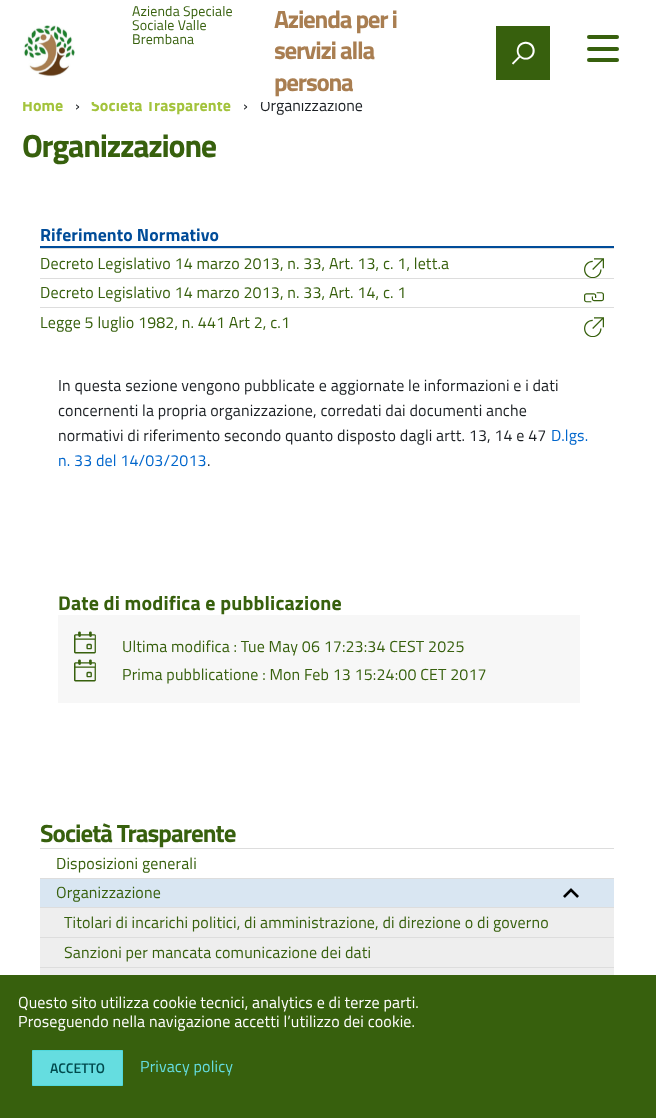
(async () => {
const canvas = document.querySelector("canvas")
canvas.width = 656
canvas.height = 1118
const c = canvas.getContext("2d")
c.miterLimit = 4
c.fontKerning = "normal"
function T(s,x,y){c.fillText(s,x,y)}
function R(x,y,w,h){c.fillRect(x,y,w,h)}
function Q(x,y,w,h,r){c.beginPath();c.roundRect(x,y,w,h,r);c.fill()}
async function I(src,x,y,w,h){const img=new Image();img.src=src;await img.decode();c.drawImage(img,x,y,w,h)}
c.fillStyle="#fff"
R(0,0,656,1118)
c.letterSpacing="0.15px"
c.font="bold 16px Titillium Web"
c.fillStyle="#a3c33c"
T("Home",22,111)
T("Società Trasparente",91,111)
c.letterSpacing="0px"
c.font="16px Titillium Web"
c.fillStyle="#1c2024"
T("Organizzazione",260,111)
c.fillStyle="#fff"
R(23,99,314,3)
await I("1.png",23,25,52,52)
c.letterSpacing="0.15px"
c.font="14px Titillium Web"
c.fillStyle="#37600d"
T("Azienda Speciale",132,16)
T("Sociale Valle",132,30)
T("Brembana",132,44)
c.letterSpacing="-1.25px"
c.font="bold 25px Titillium Web"
c.fillStyle="#a97e51"
T("Azienda per i",274,28)
T("servizi alla",274,59)
T("persona",274,91)
c.fillStyle="#37600d"
R(496,26,54,54)
c.letterSpacing="0px"
c.font="bold 22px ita"
c.fillStyle="#fff"
T("🔍",512,63)
c.fillStyle="#37600d"
Q(587,47,32,4,2)
Q(587,35,32,4,2)
Q(587,58,32,4,2)
c.font="16px Titillium Web"
c.fillStyle="#1c2024"
T("›",75,111)
T("›",243,111)
c.letterSpacing="-1.25px"
c.font="bold 32px Titillium Web"
c.fillStyle="#37600d"
T("Organizzazione",22,157)
c.fillStyle="#004c99"
R(40,246,574,2)
c.letterSpacing="0.1px"
c.font="bold 17.75px Titillium Web"
T("Riferimento Normativo",40,241)
c.fillStyle="#ddd"
R(40,248,574,1)
c.letterSpacing="0.15px"
c.font="16px Titillium Web"
c.fillStyle="#37600d"
T("Decreto Legislativo 14 marzo 2013, n. 33, Art. 13, c. 1, lett.a",40,269)
c.font="20px ita"
T("🖝",584,277)
c.fillStyle="#ddd"
R(40,278,574,1)
c.font="16px Titillium Web"
c.fillStyle="#37600d"
T("Decreto Legislativo 14 marzo 2013, n. 33, Art. 14, c. 1",40,298)
c.font="20px ita"
T("🔗",584,306)
c.fillStyle="#ddd"
R(40,307,574,1)
c.font="16px Titillium Web"
c.fillStyle="#37600d"
T("Legge 5 luglio 1982, n. 441 Art 2, c.1",40,328)
c.save()
c.beginPath()
c.rect(40,308,574,29)
c.clip()
c.font="20px ita"
T("🖝",584,336)
c.restore()
c.fillStyle="#1c2024"
T("In questa sezione vengono pubblicate e aggiornate le informazioni e i dati",58,391)
T("concernenti la propria organizzazione, corredati dai documenti anche",58,416)
T("normativi di riferimento secondo quanto disposto dagli artt. 13, 14 e 47",58,441)
c.fillStyle="#06c"
T("D.lgs.",551,441)
T("n. 33 del 14/03/2013",58,466)
c.fillStyle="#1c2024"
T(".",207,466)
c.font="bold 20px Titillium Web"
c.fillStyle="#37600d"
T("Date di modifica e pubblicazione",58,610)
c.fillStyle="#f7f7f7"
R(58,615,522,88)
c.font="22px ita"
c.fillStyle="#37600d"
T("📅",74,652)
c.font="16px Titillium Web"
T("Ultima modifica : Tue May 06 17:23:34 CEST 2025",122,652)
c.font="22px ita"
T("📅",74,680)
c.font="16px Titillium Web"
T("Prima pubblicatione : Mon Feb 13 15:24:00 CET 2017",122,680)
c.letterSpacing="-1px"
c.font="bold 25px Titillium Web"
T("Società Trasparente",40,842)
c.fillStyle="#ddd"
R(40,848,574,1)
c.letterSpacing="0.15px"
c.font="16px Titillium Web"
c.fillStyle="#37600d"
T("Disposizioni generali",56,869)
c.fillStyle="#ddd"
R(40,878,574,1)
c.fillStyle="#d9e6f2"
R(40,879,574,28)
c.fillStyle="#37600d"
T("Organizzazione",56,898)
await I("2.png",563,888,16,10)
c.fillStyle="#ddd"
R(40,907,574,1)
c.fillStyle="#eee"
R(40,908,574,29)
c.fillStyle="#37600d"
T("Titolari di incarichi politici, di amministrazione, di direzione o di governo",64,928)
c.fillStyle="#ddd"
R(40,937,574,1)
c.fillStyle="#eee"
R(40,938,574,29)
c.fillStyle="#37600d"
T("Sanzioni per mancata comunicazione dei dati",64,958)
c.fillStyle="#ddd"
R(40,967,574,1)
c.fillStyle="#eee"
R(40,968,574,7)
c.fillStyle="#37600d"
R(0,975,656,143)
c.fillStyle="#fff"
T("Questo sito utilizza cookie tecnici, analytics e di terze parti.",18,1008)
T("Proseguendo nella navigazione accetti l’utilizzo dei cookie.",18,1027)
c.fillStyle="#65dde0"
c.beginPath()
c.rect(32.5,1050.5,90,35)
c.fill()
c.strokeStyle="#50d8dc"
c.stroke()
c.letterSpacing="0px"
c.font="600 14px Titillium Web"
c.fillStyle="#004a4d"
T("ACCETTO",50,1073)
c.letterSpacing="0.15px"
c.font="16px Titillium Web"
c.fillStyle="#65dcdf"
T("Privacy policy",140,1072)
})()
